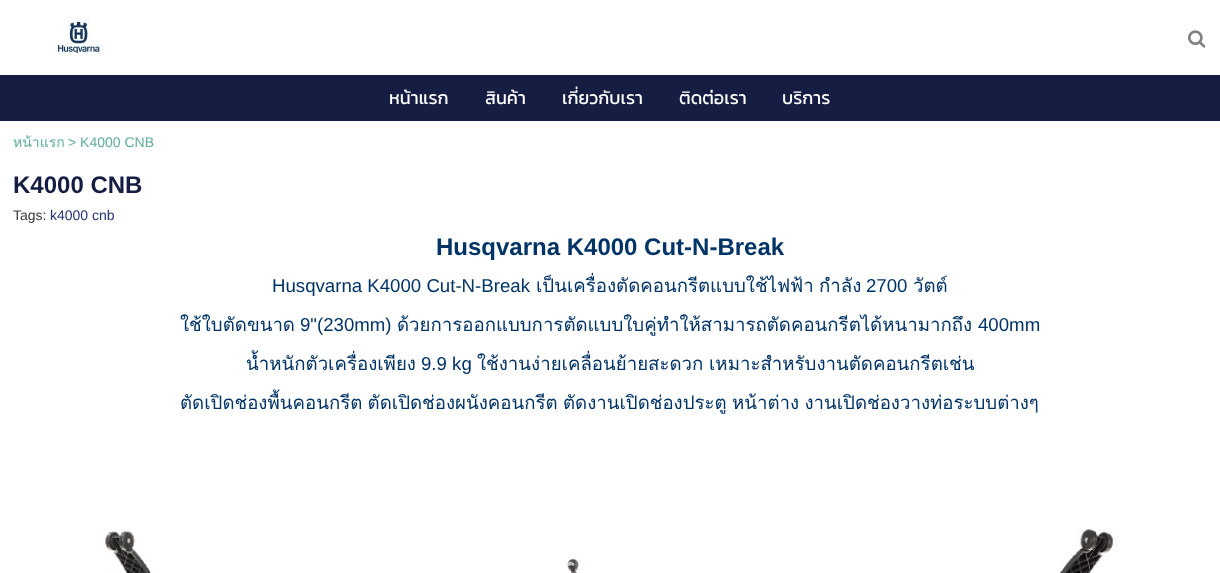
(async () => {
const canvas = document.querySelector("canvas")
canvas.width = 1220
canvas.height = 573
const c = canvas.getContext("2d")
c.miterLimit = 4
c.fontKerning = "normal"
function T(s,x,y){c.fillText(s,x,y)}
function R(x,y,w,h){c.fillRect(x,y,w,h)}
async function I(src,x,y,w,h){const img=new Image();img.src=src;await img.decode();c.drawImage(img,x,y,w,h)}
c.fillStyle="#fff"
R(0,0,1220,573)
await I("1.png",52,16,54,40)
await I("2.png",1188,30,18,18)
c.fillStyle="#151d42"
R(0,75,1220,46)
c.font="18px Kanit"
c.fillStyle="#fff"
T("หน้าแรก",389,104)
T("สินค้า",485,104)
T("เกี่ยวกับเรา",562,104)
T("ติดต่อเรา",679,104)
T("บริการ",782,104)
c.font="14px Loma"
c.fillStyle="#60ad9b"
T("หน้าแรก",13,147)
c.font="14px Liberation Sans"
T("> K4000 CNB",68,147)
c.font="bold 24px Liberation Sans"
c.fillStyle="#151d42"
T("K4000 CNB",13,193)
c.font="14px Liberation Sans"
c.fillStyle="#383a40"
T("Tags:",13,220)
c.fillStyle="#263473"
T("k4000 cnb",50,220)
c.font="bold 24px Liberation Sans"
c.fillStyle="#036"
T("Husqvarna K4000 Cut-N-Break",436,255)
c.font="18.65px Liberation Sans"
T("Husqvarna K4000 Cut-N-Break",272,292)
c.font="18.65px Loma"
T("เป็นเครื่องตัดคอนกรีตแบบใช้ไฟฟ้า",536,292)
T("กำลัง",819,292)
c.font="18.65px Liberation Sans"
T("2700",866,292)
c.font="18.65px Loma"
T("วัตต์",913,292)
T("ใช้ใบตัดขนาด",180,331)
c.font="18.65px Liberation Sans"
T("9\"(230mm)",300,331)
c.font="18.65px Loma"
T("ด้วยการออกแบบการตัดแบบใบคู่ทำให้สามารถตัดคอนกรีตได้หนามากถึง",397,331)
c.font="18.65px Liberation Sans"
T("400mm",978,331)
c.font="18.65px Loma"
T("น้ำหนักตัวเครื่องเพียง",246,370)
c.font="18.65px Liberation Sans"
T("9.9 kg",421,370)
c.font="18.65px Loma"
T("ใช้งานง่ายเคลื่อนย้ายสะดวก",477,370)
T("เหมาะสำหรับงานตัดคอนกรีตเช่น",709,370)
c.wordSpacing="-1px"
T("ตัดเปิดช่องพื้นคอนกรีต ตัดเปิดช่องผนังคอนกรีต ตัดงานเปิดช่องประตู หน้าต่าง งานเปิดช่องวางท่อระบบต่างๆ",180,409)
await I("3.png",103,529,54,44)
await I("4.png",567,558,14,15)
await I("5.png",1059,529,58,44)
})()
